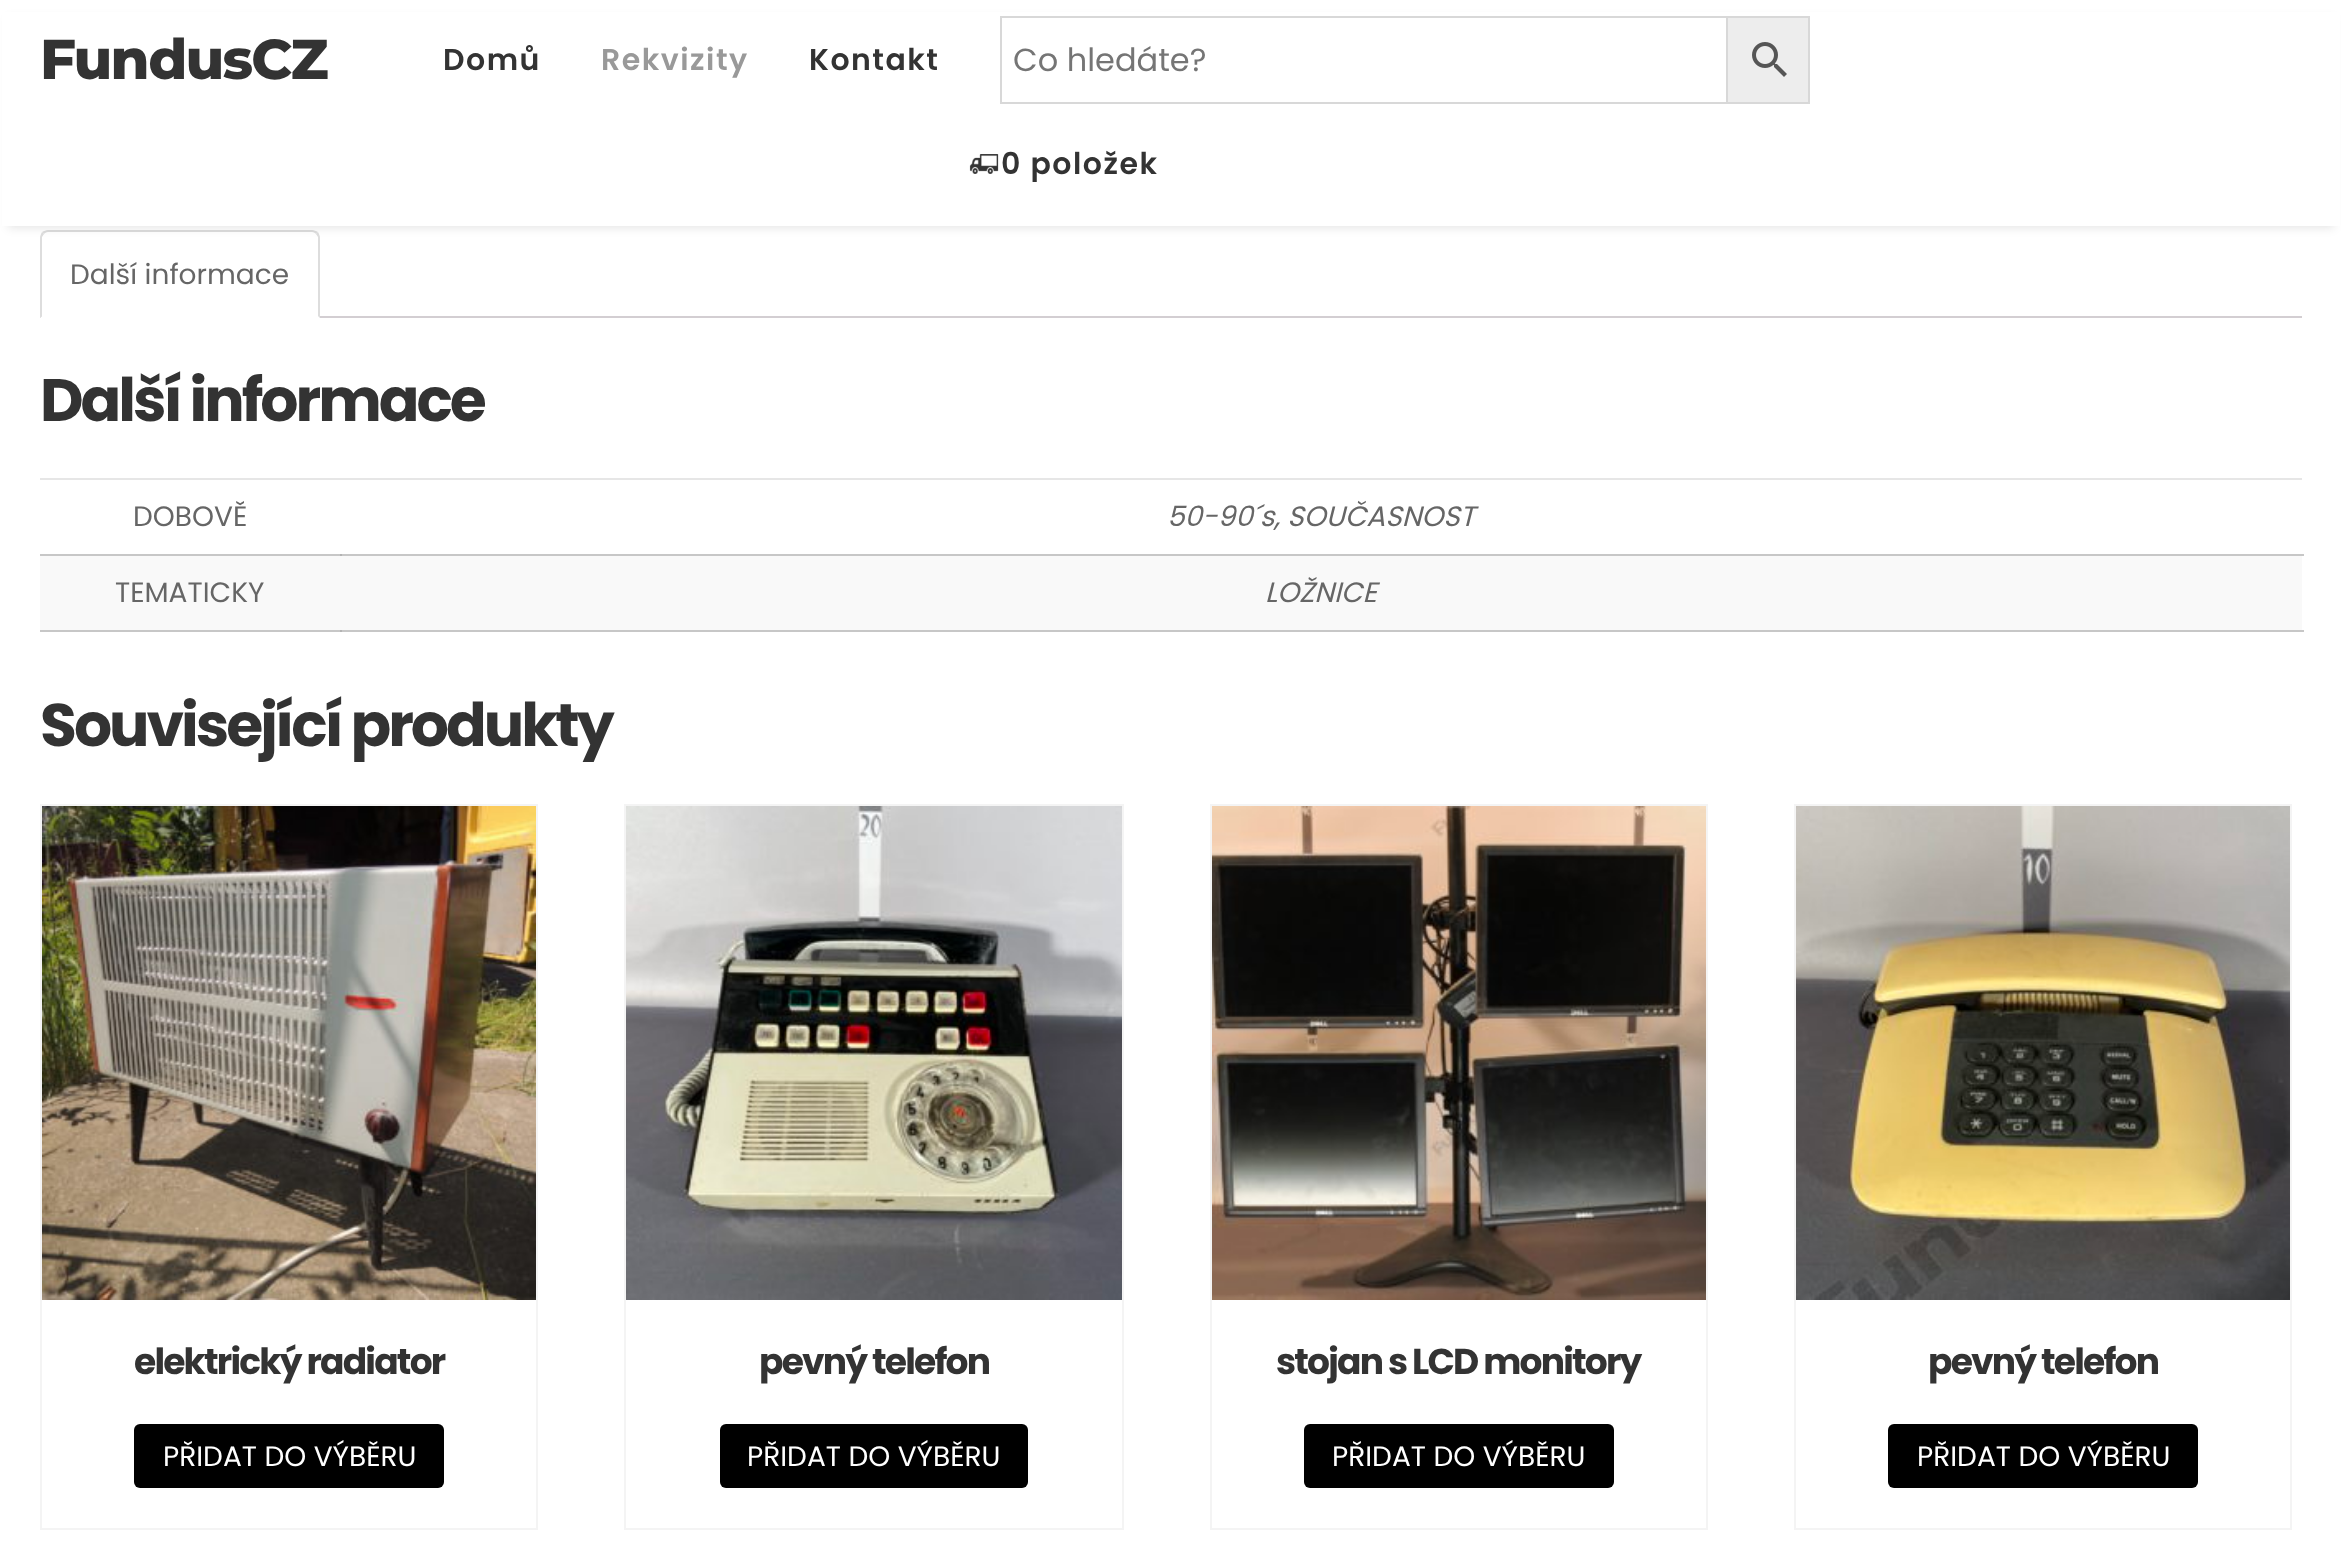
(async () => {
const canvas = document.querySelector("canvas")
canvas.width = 2341
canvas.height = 1542
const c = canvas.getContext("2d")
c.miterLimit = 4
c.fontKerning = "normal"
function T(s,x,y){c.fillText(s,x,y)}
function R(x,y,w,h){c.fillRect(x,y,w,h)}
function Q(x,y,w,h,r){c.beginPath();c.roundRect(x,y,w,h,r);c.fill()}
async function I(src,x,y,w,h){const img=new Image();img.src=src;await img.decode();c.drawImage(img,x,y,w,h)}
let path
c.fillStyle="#fff"
R(0,0,2341,1542)
c.fillStyle="#ddd"
path = new Path2D("M48 230c-2 0-4 1-6 2l2 2c1-1 2-2 4-2h264c2 0 3 1 4 2l2-2c-2-1-4-2-6-2z")
c.fill(path)
c.fillStyle="#d3ced2"
R(40,316,2262,2)
c.fillStyle="#ddd"
path = new Path2D("M320 318v-80c0-2-1-4-2-6l-2 2l2 3v79z")
c.fill(path)
c.fillStyle="#fff"
path = new Path2D("M320 318l-2-2h-276l-2 2z")
c.fill(path)
c.fillStyle="#ddd"
path = new Path2D("M40 318l2-2v-79l2-3l-2-2c-1 2-2 4-2 6z")
c.fill(path)
c.fillStyle="#0000001a"
c.filter="blur(5px)"
c.beginPath()
c.rect(8,18,2326,210)
c.fill()
c.filter="none"
c.fillStyle="#fff"
R(2,12,2338,214)
c.letterSpacing="-1.75px"
c.font="800 56px Montserrat"
c.fillStyle="#333"
T("FundusCZ",40,79)
c.letterSpacing="1.5px"
c.font="600 30px Poppins"
T("Domů",443,70)
c.fillStyle="#999"
T("Rekvizity",601,70)
c.fillStyle="#333"
T("Kontakt",809,70)
c.fillStyle="#ededed"
c.beginPath()
c.rect(1727,17,82,86)
c.fill()
c.strokeStyle="#d8d8d8"
c.lineWidth=2
c.stroke()
c.strokeRect(1001,17,726,86)
c.letterSpacing="0px"
c.font="32px Poppins"
c.fillStyle="#757575"
T("Co hledáte?",1013,71)
await I("1.png",1752,42,35,35)
await I("2.png",969,154,30,20)
c.letterSpacing="1.5px"
c.font="600 30px Poppins"
c.fillStyle="#333"
T("0 položek",1001,174)
c.letterSpacing="0px"
c.font="28px Poppins"
c.fillStyle="#666"
T("Další informace",70,284)
c.letterSpacing="-3px"
c.font="bold 60px Poppins"
c.fillStyle="#333"
T("Další informace",40,421)
c.fillStyle="#e6e6e6"
R(40,478,2262,2)
c.fillStyle="#c7c7c7"
R(40,554,2264,2)
c.letterSpacing="0px"
c.font="28px Poppins"
c.fillStyle="#666"
T("DOBOVĚ",133,526)
c.fillStyle="#b3b3b3"
R(340,554,2,2)
c.font="italic 28px Poppins"
c.fillStyle="#666"
T("50-90´s, SOUČASNOST",1167,526)
c.fillStyle="#c7c7c7"
R(40,630,2264,2)
c.fillStyle="#f9f9f9"
R(40,556,2262,74)
c.font="28px Poppins"
c.fillStyle="#666"
T("TEMATICKY",115,602)
c.fillStyle="#b3b3b3"
R(340,630,2,2)
c.font="italic 28px Poppins"
c.fillStyle="#666"
T("LOŽNICE",1265,602)
c.letterSpacing="-3px"
c.font="bold 60px Poppins"
c.fillStyle="#333"
T("Související produkty",40,746)
c.strokeStyle="#f4f4f4"
c.strokeRect(41,805,496,724)
await I("3.png",42,806,494,494)
c.letterSpacing="-1.8px"
c.font="bold 36px Poppins"
T("elektrický radiator",134,1374)
c.fillStyle="#000"
Q(134,1424,310,64,6)
c.letterSpacing="0px"
c.font="28px Poppins"
c.fillStyle="#fff"
T("PŘIDAT DO VÝBĚRU",163,1466)
c.strokeRect(625,805,498,724)
await I("4.png",626,806,496,494)
c.letterSpacing="-1.8px"
c.font="bold 36px Poppins"
c.fillStyle="#333"
T("pevný telefon",759,1374)
c.fillStyle="#000"
Q(720,1424,308,64,6)
c.letterSpacing="0px"
c.font="28px Poppins"
c.fillStyle="#fff"
T("PŘIDAT DO VÝBĚRU",747,1466)
c.strokeRect(1211,805,496,724)
await I("5.png",1212,806,494,494)
c.letterSpacing="-1.8px"
c.font="bold 36px Poppins"
c.fillStyle="#333"
T("stojan s LCD monitory",1276,1374)
c.fillStyle="#000"
Q(1304,1424,310,64,6)
c.letterSpacing="0px"
c.font="28px Poppins"
c.fillStyle="#fff"
T("PŘIDAT DO VÝBĚRU",1332,1466)
c.strokeRect(1795,805,496,724)
await I("6.png",1796,806,494,494)
c.letterSpacing="-1.8px"
c.font="bold 36px Poppins"
c.fillStyle="#333"
T("pevný telefon",1928,1374)
c.fillStyle="#000"
Q(1888,1424,310,64,6)
c.letterSpacing="0px"
c.font="28px Poppins"
c.fillStyle="#fff"
T("PŘIDAT DO VÝBĚRU",1917,1466)
})()
